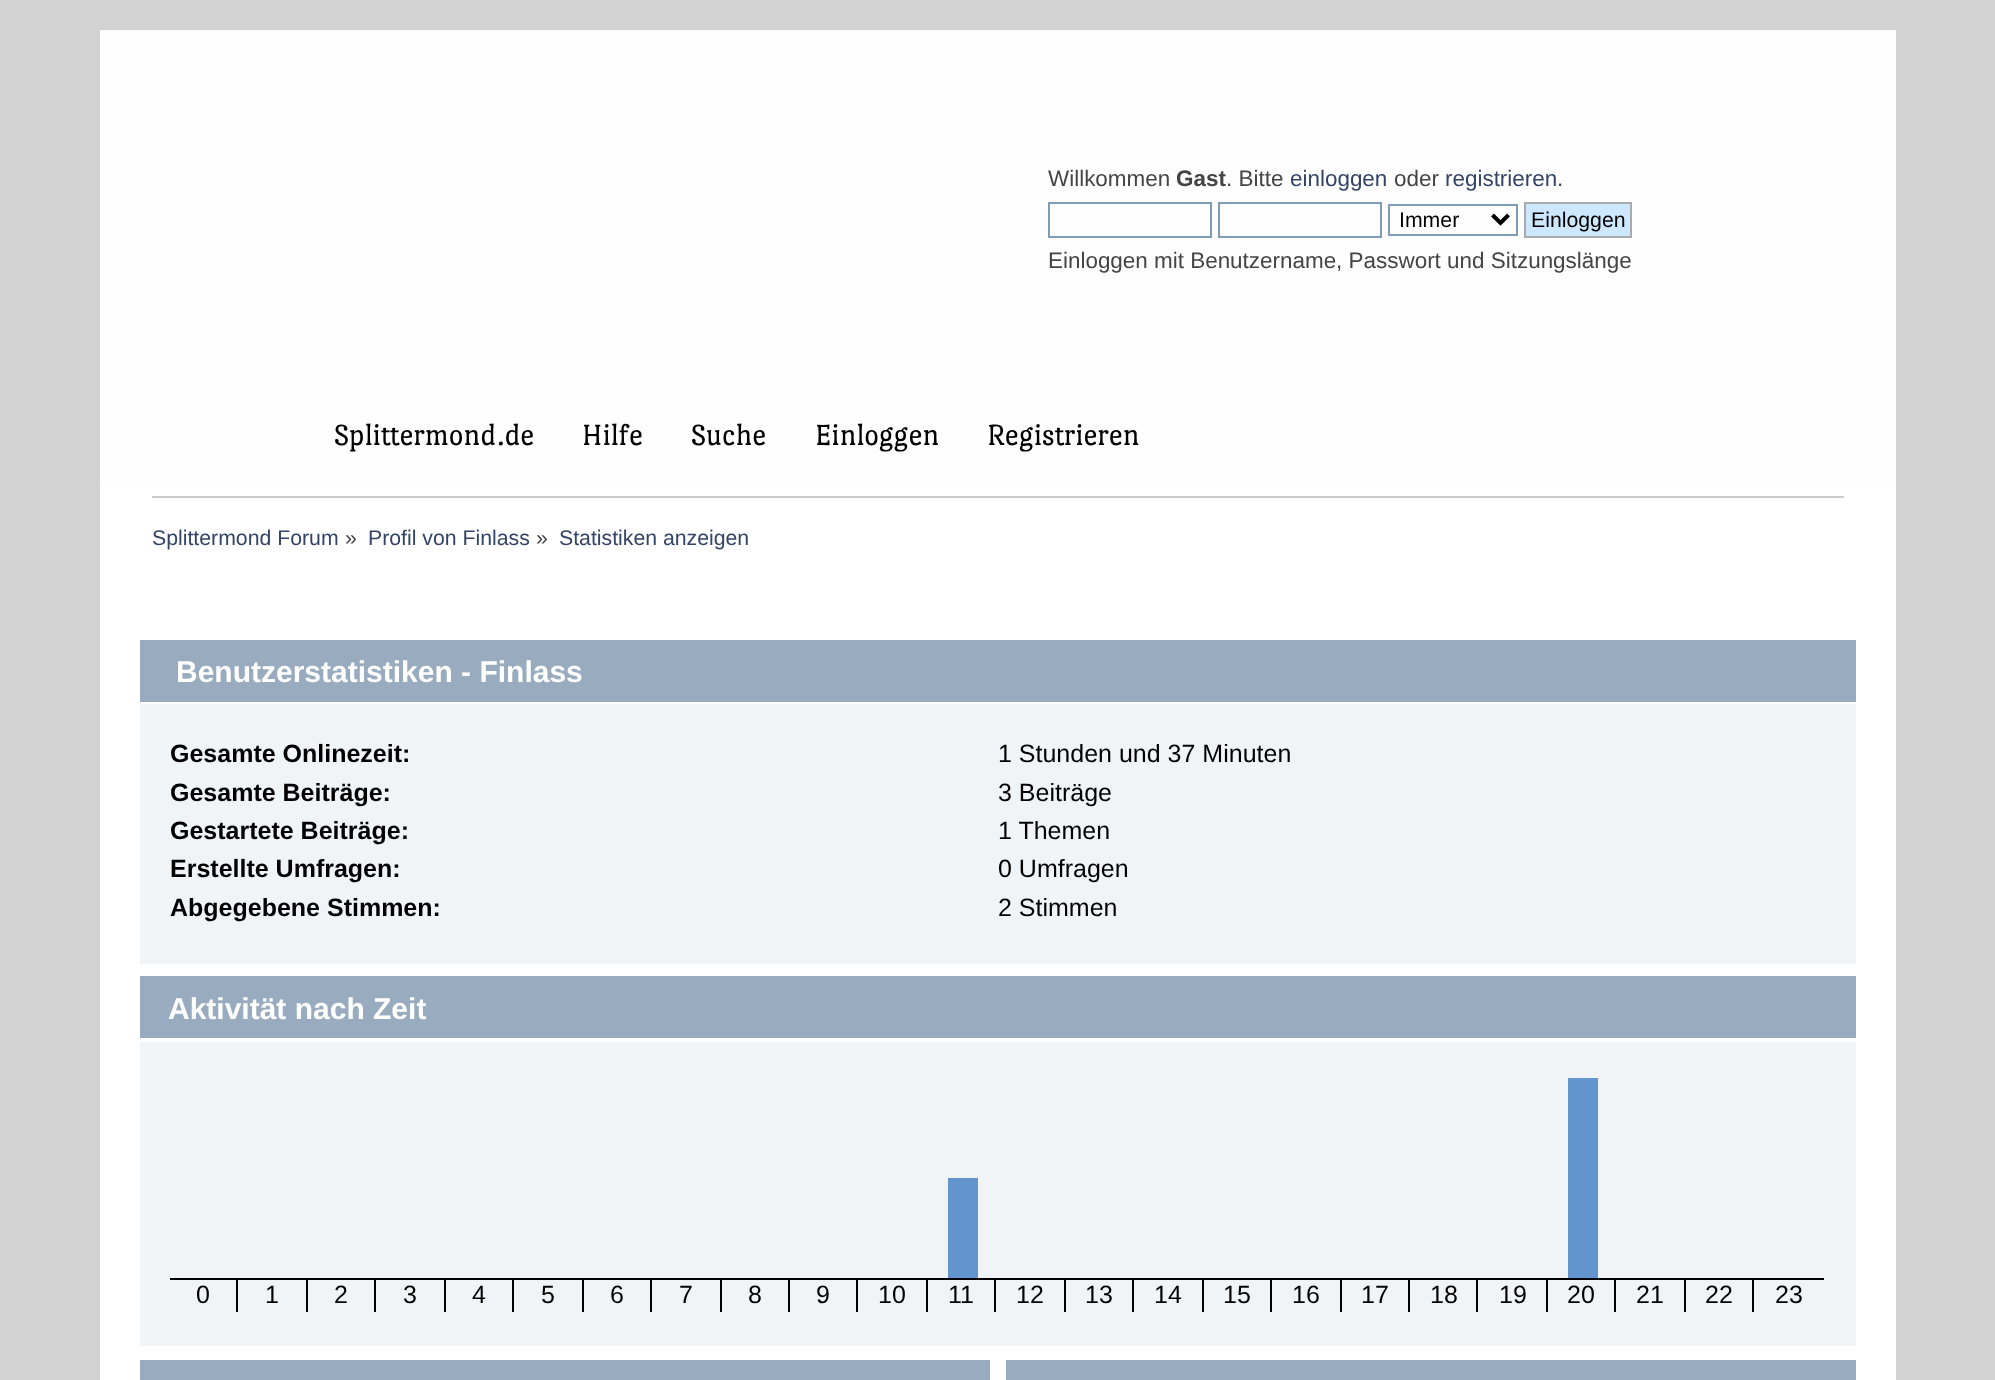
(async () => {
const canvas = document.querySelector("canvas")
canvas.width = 1995
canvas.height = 1380
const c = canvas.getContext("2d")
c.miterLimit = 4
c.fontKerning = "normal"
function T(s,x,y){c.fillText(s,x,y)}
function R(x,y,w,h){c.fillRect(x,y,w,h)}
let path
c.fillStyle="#d2d2d2"
R(0,0,1995,1380)
c.fillStyle="#fefefe"
R(100,30,1796,454)
c.font="22.45px Liberation Sans"
c.fillStyle="#444"
T("Willkommen",1048,186)
c.font="bold 22.45px Liberation Sans"
T("Gast",1176,186)
c.font="22.45px Liberation Sans"
T(". Bitte",1226,186)
c.fillStyle="#346"
T("einloggen",1290,186)
c.fillStyle="#444"
T("oder",1394,186)
c.fillStyle="#346"
T("registrieren",1445,186)
c.fillStyle="#444"
T(".",1557,186)
c.strokeStyle="#7f9db9"
c.lineWidth=2
c.strokeRect(1049,203,162,34)
c.strokeRect(1219,203,162,34)
c.strokeRect(1389,205,128,30)
path = new Path2D("M1492.5 215l8 8l8-8")
c.strokeStyle="#000"
c.lineWidth=4
c.stroke(path)
c.font="21.25px Liberation Sans"
c.fillStyle="#000"
T("Immer",1399,227)
c.fillStyle="#cde7ff"
c.beginPath()
c.rect(1525,203,106,34)
c.fill()
c.strokeStyle="#aaa"
c.lineWidth=2
c.stroke()
c.fillStyle="#000"
T("Einloggen",1531,227)
c.font="22.45px Liberation Sans"
c.fillStyle="#444"
T("Einloggen mit Benutzername, Passwort und Sitzungslänge",1048,268)
c.font="31.5px Port Lligat Slab"
c.fillStyle="#000"
T("Splittermond.de",334,445)
T("Hilfe",582,445)
T("Suche",691,445)
T("Einloggen",815,445)
T("Registrieren",987,445)
c.fillStyle="#fff"
R(100,484,1796,896)
c.fillStyle="#ccc"
R(152,496,1692,2)
c.font="21.25px Liberation Sans"
c.fillStyle="#346"
T("Splittermond Forum",152,545)
c.fillStyle="#444"
T("»",345,545)
c.fillStyle="#346"
T("Profil von Finlass",368,545)
c.fillStyle="#444"
T("»",536,545)
c.fillStyle="#346"
T("Statistiken anzeigen",559,545)
c.fillStyle="#99abbf"
R(140,640,1716,62)
c.font="bold 30px Liberation Sans"
c.fillStyle="#fff"
T("Benutzerstatistiken - Finlass",176,682)
c.fillStyle="#f0f4f7"
R(140,704,1716,260)
c.font="bold 25px Liberation Sans"
c.fillStyle="#000"
T("Gesamte Onlinezeit:",170,762)
c.font="25px Liberation Sans"
T("1 Stunden und 37 Minuten",998,762)
c.font="bold 25px Liberation Sans"
T("Gesamte Beiträge:",170,801)
c.font="25px Liberation Sans"
T("3 Beiträge",998,801)
c.font="bold 25px Liberation Sans"
T("Gestartete Beiträge:",170,839)
c.font="25px Liberation Sans"
T("1 Themen",998,839)
c.font="bold 25px Liberation Sans"
T("Erstellte Umfragen:",170,877)
c.font="25px Liberation Sans"
T("0 Umfragen",998,877)
c.font="bold 25px Liberation Sans"
T("Abgegebene Stimmen:",170,916)
c.font="25px Liberation Sans"
T("2 Stimmen",998,916)
c.fillStyle="#99abbf"
R(140,976,1716,62)
c.font="bold 30px Liberation Sans"
c.fillStyle="#fff"
T("Aktivität nach Zeit",168,1019)
c.fillStyle="#f0f4f7"
R(140,1042,1716,304)
c.fillStyle="#000"
R(170,1278,1654,2)
R(236,1278,2,34)
c.font="25px Liberation Sans"
T("0",196,1303)
R(306,1278,2,34)
T("1",265,1303)
R(374,1278,2,34)
T("2",334,1303)
R(444,1278,2,34)
T("3",403,1303)
R(512,1278,2,34)
T("4",472,1303)
R(582,1278,2,34)
T("5",541,1303)
R(650,1278,2,34)
T("6",610,1303)
R(720,1278,2,34)
T("7",679,1303)
R(788,1278,2,34)
T("8",748,1303)
R(856,1278,2,34)
T("9",816,1303)
R(926,1278,2,34)
T("10",878,1303)
c.fillStyle="#6294ce"
R(948,1178,30,100)
c.fillStyle="#000"
R(994,1278,2,34)
T("11",948,1303)
R(1064,1278,2,34)
T("12",1016,1303)
R(1132,1278,2,34)
T("13",1085,1303)
R(1202,1278,2,34)
T("14",1154,1303)
R(1270,1278,2,34)
T("15",1223,1303)
R(1340,1278,2,34)
T("16",1292,1303)
R(1408,1278,2,34)
T("17",1361,1303)
R(1476,1278,2,34)
T("18",1430,1303)
R(1546,1278,2,34)
T("19",1499,1303)
c.fillStyle="#6294ce"
R(1568,1078,30,200)
c.fillStyle="#000"
R(1614,1278,2,34)
T("20",1567,1303)
R(1684,1278,2,34)
T("21",1636,1303)
R(1752,1278,2,34)
T("22",1705,1303)
T("23",1775,1303)
c.fillStyle="#99abbf"
R(140,1360,850,20)
R(1006,1360,850,20)
})()
